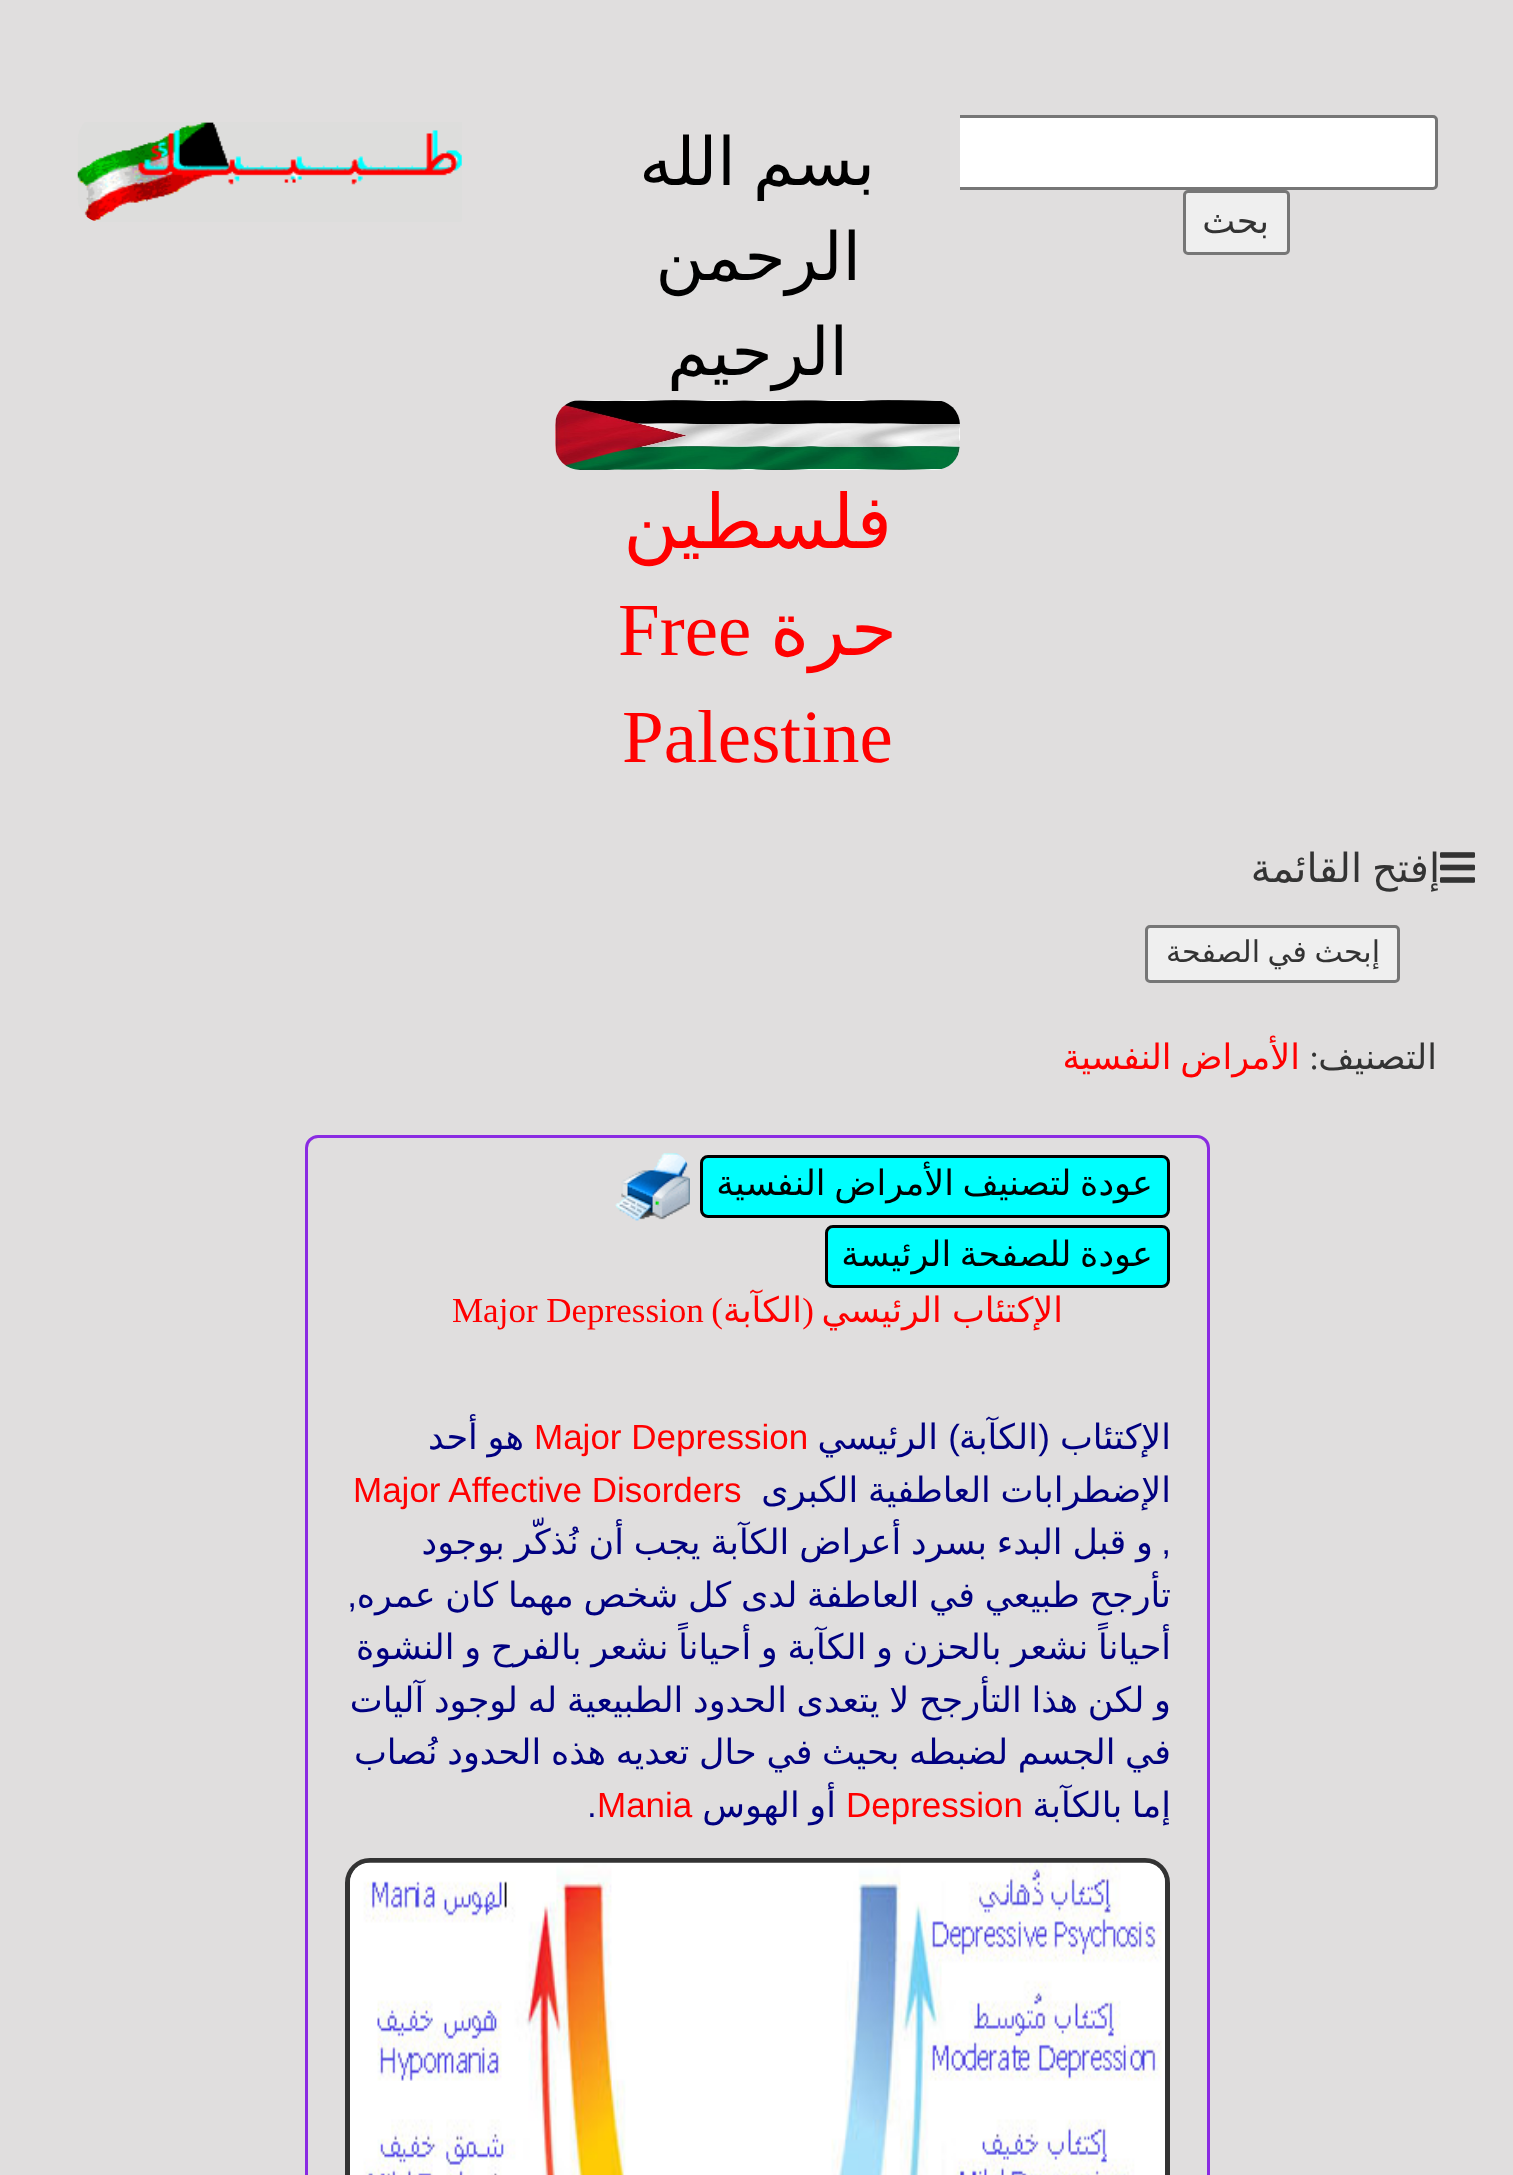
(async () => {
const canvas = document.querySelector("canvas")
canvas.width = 1513
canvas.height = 2175
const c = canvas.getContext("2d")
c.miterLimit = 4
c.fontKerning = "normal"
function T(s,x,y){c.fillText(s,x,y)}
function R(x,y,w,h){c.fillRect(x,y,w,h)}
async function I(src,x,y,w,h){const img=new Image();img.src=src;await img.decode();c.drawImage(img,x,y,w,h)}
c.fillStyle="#e0dede"
R(0,0,1513,2175)
c.fillStyle="#fff"
c.beginPath()
c.roundRect(689.5,116.5,747,72,3.5)
c.fill()
c.strokeStyle="#767676"
c.lineWidth=3
c.stroke()
c.fillStyle="#efefef"
c.beginPath()
c.roundRect(1184.5,191.5,104,62,3.5)
c.fill()
c.stroke()
c.direction="rtl"
c.font="35px DejaVu Sans"
c.fillStyle="#333"
T("بحث",1269,233)
c.fillStyle="#e0dede"
R(688,115,272,75)
c.wordSpacing="-4px"
c.font="66.5px DejaVu Sans"
c.fillStyle="#000"
T("بسم الله",875,185)
c.wordSpacing="0px"
T("الرحمن",861,280)
T("الرحيم",848,375)
await I("1.png",555,400,405,70)
c.font="75px DejaVu Sans"
c.fillStyle="#f00"
T("فلسطين",892,548)
T("حرة",897,655)
c.direction="ltr"
c.font="75px Liberation Serif"
T("Free",618,655)
T("Palestine",622,762)
await I("2.png",77,122,385,100)
await I("3.png",1440,852,35,31)
c.wordSpacing="-3px"
c.direction="rtl"
c.font="40px DejaVu Sans"
c.fillStyle="#333"
T("إفتح القائمة",1440,882)
c.fillStyle="#efefef"
c.beginPath()
c.roundRect(1146.5,926.5,252,55,3.5)
c.fill()
c.stroke()
c.wordSpacing="-2px"
c.font="30px DejaVu Sans"
c.fillStyle="#333"
T("إبحث في الصفحة",1380,962)
c.wordSpacing="0px"
c.font="35px DejaVu Sans"
T("التصنيف",1437,1069)
c.font="35px Liberation Serif"
T(":",1319,1069)
c.wordSpacing="-2.5px"
c.font="35px DejaVu Sans"
c.fillStyle="#f00"
T("الأمراض النفسية",1300,1069)
c.beginPath()
c.roundRect(306.5,1136.5,902,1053,11.5)
c.strokeStyle="#8a2be2"
c.stroke()
c.fillStyle="#0ff"
c.beginPath()
c.roundRect(701.5,1156.5,467,60,6.5)
c.fill()
c.strokeStyle="#000"
c.stroke()
c.fillStyle="#000"
T("عودة لتصنيف الأمراض النفسية",1153,1195)
await I("4.png",615,1153,75,68)
c.fillStyle="#0ff"
c.beginPath()
c.roundRect(826.5,1226.5,342,60,6.5)
c.fill()
c.stroke()
c.fillStyle="#000"
T("عودة للصفحة الرئيسة",1153,1266)
c.wordSpacing="-1px"
c.fillStyle="#f00"
T("الإكتئاب الرئيسي",1063,1322)
c.wordSpacing="0px"
c.font="35px Liberation Serif"
T("(",814,1322)
c.font="35px DejaVu Sans"
T("الكآبة",802,1322)
c.font="35px Liberation Serif"
T(")",723,1322)
c.direction="ltr"
T("Major Depression",452,1322)
c.direction="rtl"
c.font="35px DejaVu Sans"
c.fillStyle="#000080"
T("الإكتئاب",1171,1449)
c.font="35px Liberation Sans"
T("(",1050,1449)
c.font="35px DejaVu Sans"
T("الكآبة",1038,1449)
c.font="35px Liberation Sans"
T(")",960,1449)
c.font="35px DejaVu Sans"
T("الرئيسي",938,1449)
c.direction="ltr"
c.font="35px Liberation Sans"
c.fillStyle="#f00"
T("Major Depression",534,1449)
c.wordSpacing="-1.4px"
c.direction="rtl"
c.font="35px DejaVu Sans"
c.fillStyle="#000080"
T("هو أحد",524,1449)
T("الإضطرابات العاطفية الكبرى",1171,1502)
c.wordSpacing="0px"
c.direction="ltr"
c.font="35px Liberation Sans"
c.fillStyle="#f00"
T("Major Affective Disorders",353,1502)
c.direction="rtl"
c.fillStyle="#000080"
T(",",1171,1554)
c.wordSpacing="-1.25px"
c.font="35px DejaVu Sans"
T("و قبل البدء بسرد أعراض الكآبة يجب أن نُذكّر بوجود",1153,1554)
c.wordSpacing="-1.4px"
T("تأرجح طبيعي في العاطفة لدى كل شخص مهما كان عمره",1171,1607)
c.wordSpacing="0px"
c.font="35px Liberation Sans"
T(",",357,1607)
c.wordSpacing="-1.4px"
c.font="35px DejaVu Sans"
T("أحياناً نشعر بالحزن و الكآبة و أحياناً نشعر بالفرح و النشوة",1171,1659)
T("و لكن هذا التأرجح لا يتعدى الحدود الطبيعية له لوجود آليات",1171,1712)
T("في الجسم لضبطه بحيث في حال تعديه هذه الحدود نُصاب",1171,1764)
T("إما بالكآبة",1171,1817)
c.wordSpacing="0px"
c.direction="ltr"
c.font="35px Liberation Sans"
c.fillStyle="#f00"
T("Depression",846,1817)
c.wordSpacing="-1.4px"
c.direction="rtl"
c.font="35px DejaVu Sans"
c.fillStyle="#000080"
T("أو الهوس",836,1817)
c.wordSpacing="0px"
c.direction="ltr"
c.font="35px Liberation Sans"
c.fillStyle="#f00"
T("Mania",597,1817)
c.fillStyle="#000080"
T(".",587,1817)
c.beginPath()
c.roundRect(347.5,1860.5,820,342,22.5)
c.strokeStyle="#333"
c.lineWidth=5
c.stroke()
await I("5.png",350,1862,815,313)
})()
